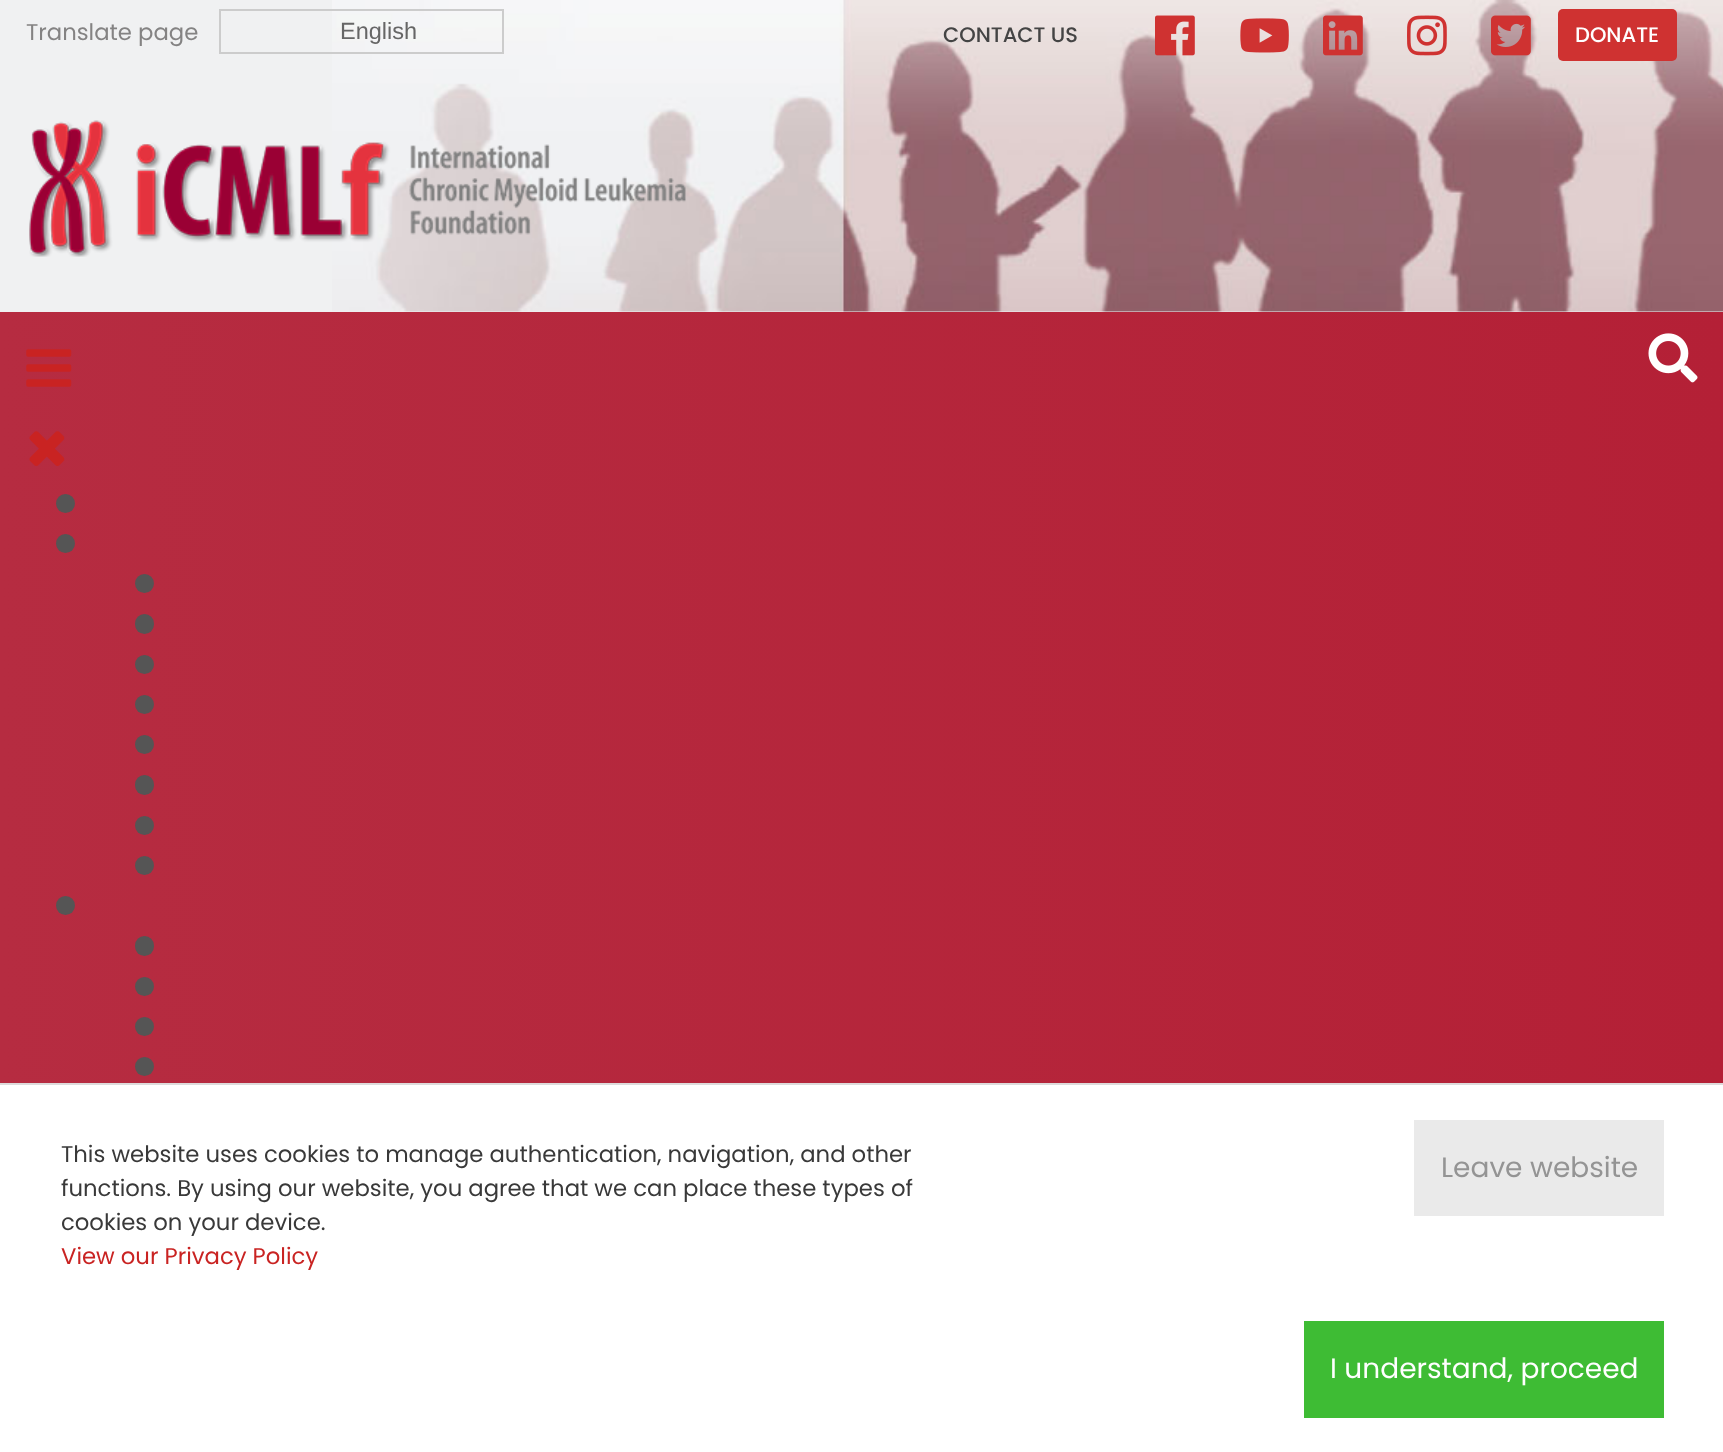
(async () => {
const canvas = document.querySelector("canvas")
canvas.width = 1723
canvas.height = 1452
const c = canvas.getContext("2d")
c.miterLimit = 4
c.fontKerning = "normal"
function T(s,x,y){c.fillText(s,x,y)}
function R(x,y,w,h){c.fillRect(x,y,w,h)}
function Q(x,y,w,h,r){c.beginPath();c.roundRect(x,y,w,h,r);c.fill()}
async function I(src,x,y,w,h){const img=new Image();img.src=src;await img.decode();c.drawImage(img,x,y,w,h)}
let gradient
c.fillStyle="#f0f1f2"
R(0,0,1723,1452)
await I("1.png",332,0,1391,312)
c.font="22.75px Poppins"
c.fillStyle="#848383"
T("Translate page",26,40)
c.strokeStyle="#ccc"
c.lineWidth=2
c.strokeRect(220,10,283,43)
c.font="23.5px Liberation Sans"
c.fillStyle="#666"
T("English",340,39)
await I("2.png",29,120,657,137)
c.font="500 21px Poppins"
c.fillStyle="#444"
T("CONTACT US",943,42)
await I("3.png",1155,15,40,41)
await I("4.png",1240,18,49,35)
await I("5.png",1323,15,40,41)
await I("6.png",1407,15,40,41)
await I("7.png",1491,15,40,41)
c.fillStyle="#cf3231"
Q(1558,9,119,52,5)
c.fillStyle="#fff"
T("DONATE",1575,42)
gradient = c.createLinearGradient(0,1299,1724,1299)
gradient.addColorStop(0,"#b62c41")
gradient.addColorStop(1,"#b42036")
c.fillStyle = gradient
R(0,312,1723,771)
await I("8.png",26,349,46,38)
await I("9.png",29,431,36,35)
c.fillStyle="#555"
c.beginPath()
c.arc(65.5,503.5,9.5,0,7)
c.fill()
c.beginPath()
c.arc(65.5,543.5,9.5,0,7)
c.fill()
c.beginPath()
c.arc(144.5,583.5,9.5,0,7)
c.fill()
Q(135,614,19,20,9.5)
c.beginPath()
c.arc(144.5,664.5,9.5,0,7)
c.fill()
c.beginPath()
c.arc(144.5,704.5,9.5,0,7)
c.fill()
c.beginPath()
c.arc(144.5,744.5,9.5,0,7)
c.fill()
Q(135,775,19,20,9.5)
c.beginPath()
c.arc(144.5,825.5,9.5,0,7)
c.fill()
c.beginPath()
c.arc(144.5,865.5,9.5,0,7)
c.fill()
c.beginPath()
c.arc(65.5,905.5,9.5,0,7)
c.fill()
Q(135,936,19,20,9.5)
c.beginPath()
c.arc(144.5,986.5,9.5,0,7)
c.fill()
c.beginPath()
c.arc(144.5,1026.5,9.5,0,7)
c.fill()
c.beginPath()
c.arc(144.5,1066.5,9.5,0,7)
c.fill()
await I("10.png",1648,333,50,50)
c.fillStyle="#fff"
R(0,1085,1723,367)
c.fillStyle="#dddbdb"
R(0,1083,1723,2)
c.font="22.75px Poppins"
c.fillStyle="#393939"
T("This website uses cookies to manage authentication, navigation, and other",61,1162)
T("functions. By using our website, you agree that we can place these types of",61,1196)
T("cookies on your device.",61,1230)
c.fillStyle="#c92322"
T("View our Privacy Policy",61,1264)
c.fillStyle="#eaeaea"
R(1414,1120,250,96)
c.font="28px Poppins"
c.fillStyle="#949494"
T("Leave website",1441,1177)
c.fillStyle="#3ebc34"
R(1304,1321,360,97)
c.fillStyle="#fff"
T("I understand, proceed",1330,1378)
})()
